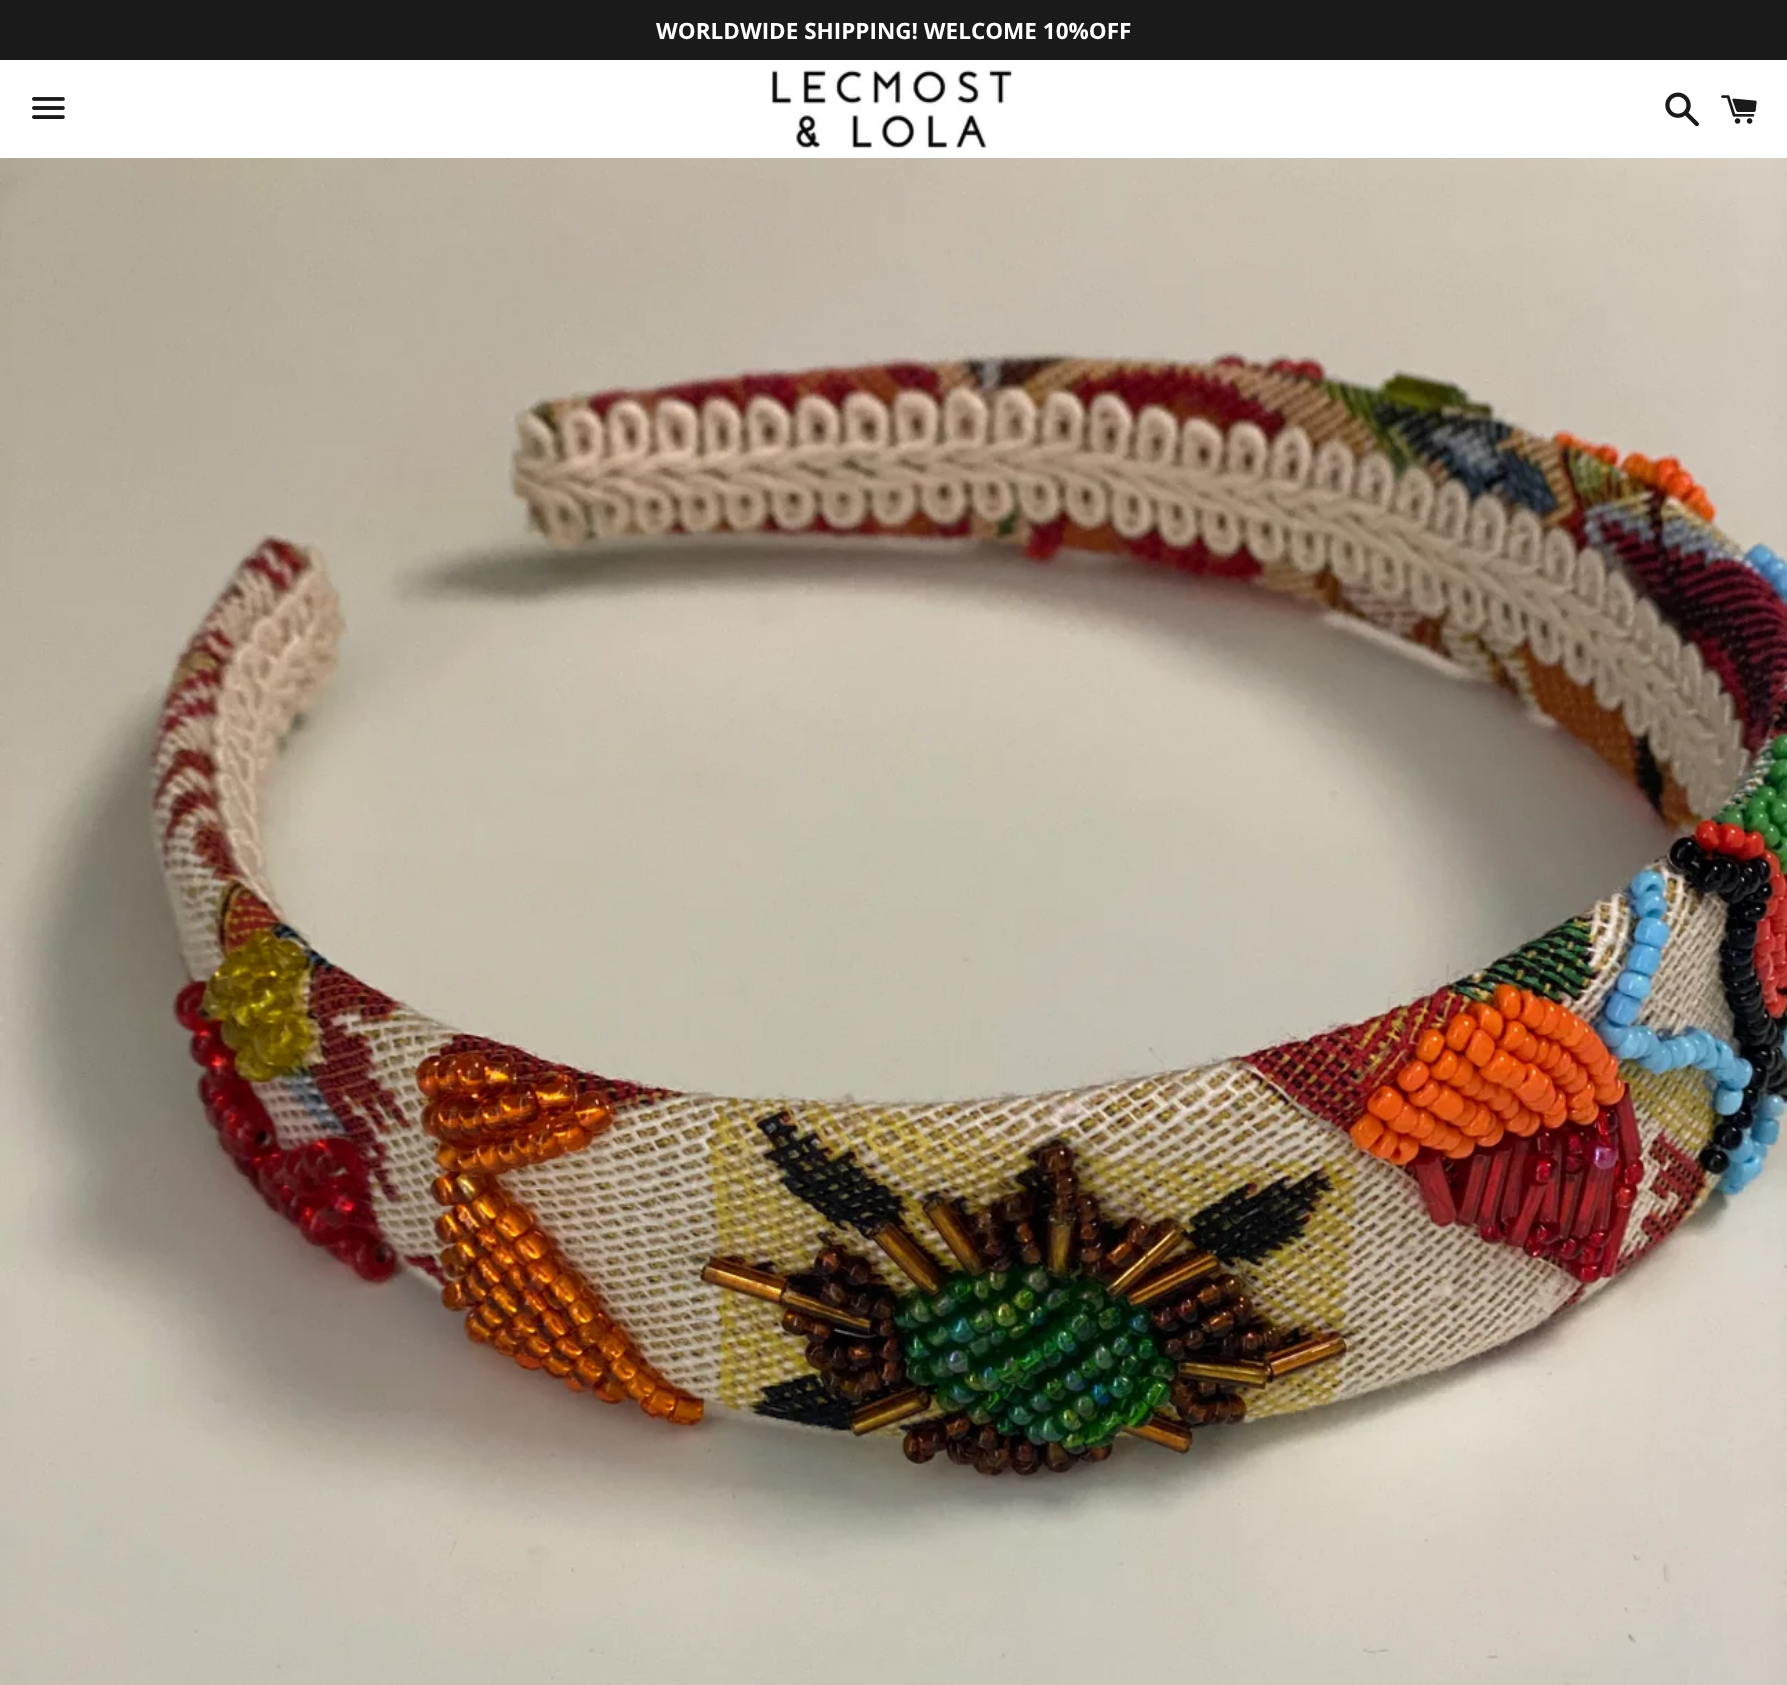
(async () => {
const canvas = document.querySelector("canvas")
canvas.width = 1787
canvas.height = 1685
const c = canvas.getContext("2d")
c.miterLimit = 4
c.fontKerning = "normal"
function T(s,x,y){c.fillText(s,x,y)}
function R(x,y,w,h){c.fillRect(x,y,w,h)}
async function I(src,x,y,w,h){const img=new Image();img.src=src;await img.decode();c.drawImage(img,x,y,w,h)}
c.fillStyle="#fff"
R(0,0,1787,1685)
c.fillStyle="#1a1a1a"
R(0,0,1787,60)
c.font="bold 22.5px Open Sans"
c.fillStyle="#fff"
T("WORLDWIDE SHIPPING! WELCOME 10%OFF",656,39)
await I("1.png",32,97,33,22)
await I("2.png",771,69,242,83)
await I("3.png",1665,92,34,35)
await I("4.png",1721,95,36,29)
await I("5.png",0,158,1787,1527)
})()
